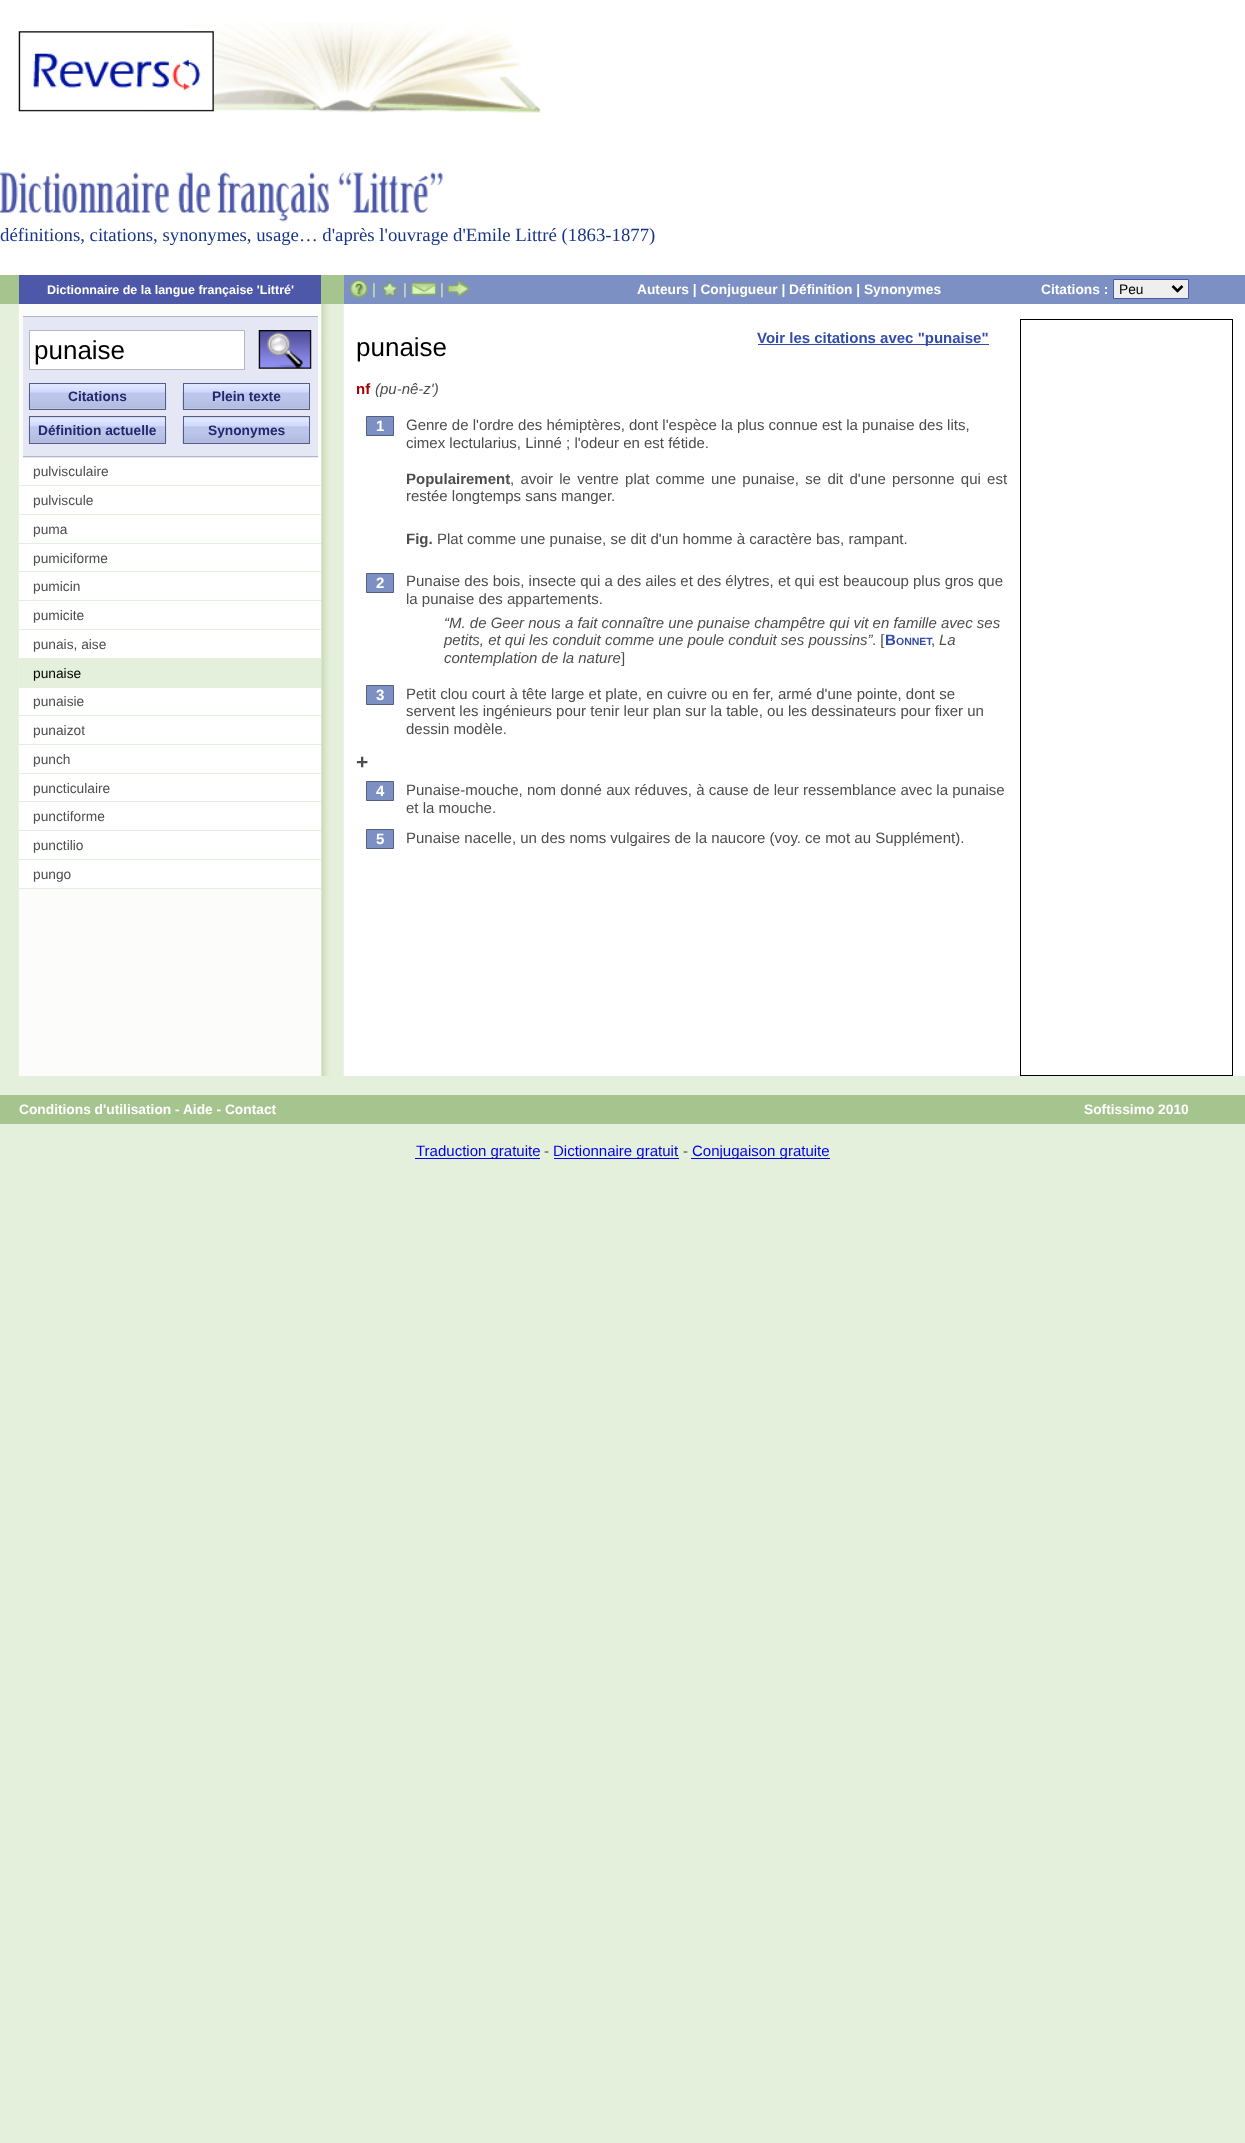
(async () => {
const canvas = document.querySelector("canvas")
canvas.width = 1245
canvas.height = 2143
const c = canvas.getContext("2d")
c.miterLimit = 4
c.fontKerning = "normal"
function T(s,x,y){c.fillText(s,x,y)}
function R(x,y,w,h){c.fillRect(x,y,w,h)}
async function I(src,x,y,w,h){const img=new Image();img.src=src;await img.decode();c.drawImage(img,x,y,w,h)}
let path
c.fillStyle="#e4f0db"
R(0,0,1245,2143)
c.fillStyle="#fff"
R(0,0,1245,275)
await I("1.png",146,22,395,91)
await I("2.png",18,31,196,81)
await I("3.png",0,172,443,50)
c.font="18.75px Liberation Serif"
c.fillStyle="#183589"
T("définitions, citations, synonymes, usage… d'après l'ouvrage d'Emile Littré (1863-1877)",0,241)
c.fillStyle="#a6c58e"
R(0,275,344,29)
c.fillStyle="#4d59a8"
R(19,275,302,29)
c.font="bold 12.5px Liberation Sans"
c.fillStyle="#fff"
T("Dictionnaire de la langue française 'Littré'",47,294)
c.fillStyle="#7d90c3"
R(344,275,901,29)
await I("4.png",350,279,18,19)
c.font="15px Liberation Sans"
c.fillStyle="#d2efad"
T("|",372,294)
await I("5.png",380,280,19,18)
T("|",403,294)
await I("6.png",411,282,26,14)
T("|",440,294)
await I("7.png",447,281,22,16)
c.font="bold 13.75px Liberation Sans"
c.fillStyle="#fff"
T("Auteurs | Conjugueur | Définition | Synonymes",637,294)
T("Citations :",1041,294)
c.fillStyle="#efefef"
c.beginPath()
c.rect(1113.5,279.5,75,19)
c.fill()
c.strokeStyle="#4d59a8"
c.stroke()
path = new Path2D("M1172.5 286l5 5l5-5")
c.strokeStyle="#000"
c.lineWidth=2.5
c.stroke(path)
c.font="13.75px Liberation Sans"
c.fillStyle="#000"
T("Peu",1119,294)
c.fillStyle="#fff"
R(343,304,902,772)
await I("8.png",0,304,344,772)
c.fillStyle="#e5e8f4"
R(23,317,295,141)
c.fillStyle="#b0b5c8"
R(23,316,295,1)
R(23,456,295,1)
c.fillStyle="#fff"
c.beginPath()
c.rect(29.5,330.5,215,39)
c.fill()
c.strokeStyle="#b0b5c8"
c.lineWidth=1
c.stroke()
c.font="26px Liberation Sans"
c.fillStyle="#000"
T("punaise",34,359)
await I("9.png",258,330,54,39)
await I("10.png",28,383,139,26)
c.strokeStyle="#545d82"
c.strokeRect(29.5,383.5,136,26)
c.font="bold 13.75px Liberation Sans"
c.fillStyle="#23276c"
T("Citations",68,401)
await I("11.png",182,383,127,26)
c.strokeRect(183.5,383.5,126,26)
T("Plein texte",212,401)
c.fillStyle="#b8c1e6"
R(30,417,135,26)
await I("12.png",28,417,139,26)
c.strokeRect(29.5,416.5,136,27)
c.fillStyle="#23276c"
T("Définition actuelle",38,435)
c.fillStyle="#b8c1e6"
R(184,417,125,26)
await I("13.png",182,417,127,26)
c.strokeRect(183.5,416.5,126,27)
c.fillStyle="#23276c"
T("Synonymes",208,435)
c.fillStyle="#fff"
R(19,458,302,27)
c.fillStyle="#e4f0db"
R(19,485,302,1)
c.font="13.75px Liberation Sans"
c.fillStyle="#4d4d4d"
T("pulvisculaire",33,476)
c.fillStyle="#fff"
R(19,486,302,28)
c.fillStyle="#e4f0db"
R(19,514,302,1)
c.fillStyle="#4d4d4d"
T("pulviscule",33,505)
c.fillStyle="#fff"
R(19,515,302,28)
c.fillStyle="#e4f0db"
R(19,543,302,1)
c.fillStyle="#4d4d4d"
T("puma",33,534)
c.fillStyle="#fff"
R(19,544,302,56)
c.fillStyle="#e4f0db"
R(19,571,302,1)
c.fillStyle="#4d4d4d"
T("pumiciforme",33,563)
c.fillStyle="#e4f0db"
R(19,600,302,1)
c.fillStyle="#4d4d4d"
T("pumicin",33,591)
c.fillStyle="#fff"
R(19,601,302,28)
c.fillStyle="#e4f0db"
R(19,629,302,1)
c.fillStyle="#4d4d4d"
T("pumicite",33,620)
c.fillStyle="#fff"
R(19,630,302,28)
c.fillStyle="#e4f0db"
R(19,658,302,30)
c.fillStyle="#4d4d4d"
T("punais, aise",33,649)
c.fillStyle="#000"
T("punaise",33,678)
c.fillStyle="#fff"
R(19,688,302,27)
c.fillStyle="#e4f0db"
R(19,715,302,1)
c.fillStyle="#4d4d4d"
T("punaisie",33,706)
c.fillStyle="#fff"
R(19,716,302,28)
c.fillStyle="#e4f0db"
R(19,744,302,1)
c.fillStyle="#4d4d4d"
T("punaizot",33,735)
c.fillStyle="#fff"
R(19,745,302,28)
c.fillStyle="#e4f0db"
R(19,773,302,1)
c.fillStyle="#4d4d4d"
T("punch",33,764)
c.fillStyle="#fff"
R(19,774,302,56)
c.fillStyle="#e4f0db"
R(19,801,302,1)
c.fillStyle="#4d4d4d"
T("puncticulaire",33,793)
c.fillStyle="#e4f0db"
R(19,830,302,1)
c.fillStyle="#4d4d4d"
T("punctiforme",33,821)
c.fillStyle="#fff"
R(19,831,302,28)
c.fillStyle="#e4f0db"
R(19,859,302,1)
c.fillStyle="#4d4d4d"
T("punctilio",33,850)
c.fillStyle="#fff"
R(19,860,302,28)
c.fillStyle="#e4f0db"
R(19,888,302,1)
c.fillStyle="#4d4d4d"
T("pungo",33,879)
c.fillStyle="#324ca9"
R(758,344,231,1)
c.font="bold 15px Liberation Sans"
T("Voir les citations avec \"punaise\"",757,343)
c.font="26px Liberation Sans"
c.fillStyle="#000"
T("punaise",356,356)
c.font="bold 15px Liberation Sans"
c.fillStyle="#a30000"
T("nf",356,394)
c.font="italic 15px Liberation Sans"
c.fillStyle="#4d4d4d"
T("(pu-nê-z')",375,394)
c.fillStyle="#7d90c3"
c.beginPath()
c.rect(366.5,416.5,27,19)
c.fill()
c.stroke()
c.font="bold 15px Liberation Sans"
c.fillStyle="#fff"
T("1",376,431)
c.font="15px Liberation Sans"
c.fillStyle="#4d4d4d"
T("Genre de l'ordre des hémiptères, dont l'espèce la plus connue est la punaise des lits,",406,430)
T("cimex lectularius, Linné ; l'odeur en est fétide.",406,448)
c.font="bold 15px Liberation Sans"
T("Populairement",406,484)
c.wordSpacing="2.1px"
c.font="15px Liberation Sans"
T(", avoir le ventre plat comme une punaise, se dit d'une personne qui est",510,484)
c.wordSpacing="0px"
T("restée longtemps sans manger.",406,501)
c.font="bold 15px Liberation Sans"
T("Fig.",406,544)
c.font="15px Liberation Sans"
T("Plat comme une punaise, se dit d'un homme à caractère bas, rampant.",437,544)
c.fillStyle="#7d90c3"
c.beginPath()
c.rect(366.5,573.5,27,19)
c.fill()
c.stroke()
c.font="bold 15px Liberation Sans"
c.fillStyle="#fff"
T("2",376,588)
c.font="15px Liberation Sans"
c.fillStyle="#4d4d4d"
T("Punaise des bois, insecte qui a des ailes et des élytres, et qui est beaucoup plus gros que",406,586)
T("la punaise des appartements.",406,604)
c.font="italic 15px Liberation Sans"
T("“M. de Geer nous a fait connaître une punaise champêtre qui vit en famille avec ses",444,628)
T("petits, et qui les conduit comme une poule conduit ses poussins”",444,645)
c.font="15px Liberation Sans"
T(". [",872,645)
c.font="bold 15px Liberation Sans"
c.fillStyle="#324ca9"
T("B",885,645)
c.font="bold 10.5px Liberation Sans"
T("ONNET",896,645)
c.font="italic 15px Liberation Sans"
c.fillStyle="#4d4d4d"
T("La",939,645)
c.font="15px Liberation Sans"
T(",",931,645)
c.font="italic 15px Liberation Sans"
T("contemplation de la nature",444,663)
c.font="15px Liberation Sans"
T("]",621,663)
c.fillStyle="#7d90c3"
c.beginPath()
c.rect(366.5,685.5,27,19)
c.fill()
c.stroke()
c.font="bold 15px Liberation Sans"
c.fillStyle="#fff"
T("3",376,700)
c.font="15px Liberation Sans"
c.fillStyle="#4d4d4d"
T("Petit clou court à tête large et plate, en cuivre ou en fer, armé d'une pointe, dont se",406,699)
T("servent les ingénieurs pour tenir leur plan sur la table, ou les dessinateurs pour fixer un",406,716)
T("dessin modèle.",406,734)
c.font="bold 21px Liberation Sans"
T("+",356,769)
c.fillStyle="#7d90c3"
c.beginPath()
c.rect(366.5,781.5,27,19)
c.fill()
c.stroke()
c.font="bold 15px Liberation Sans"
c.fillStyle="#fff"
T("4",376,796)
c.font="15px Liberation Sans"
c.fillStyle="#4d4d4d"
T("Punaise-mouche, nom donné aux réduves, à cause de leur ressemblance avec la punaise",406,795)
T("et la mouche.",406,813)
c.fillStyle="#7d90c3"
c.beginPath()
c.rect(366.5,829.5,27,19)
c.fill()
c.stroke()
c.font="bold 15px Liberation Sans"
c.fillStyle="#fff"
T("5",376,844)
c.font="15px Liberation Sans"
c.fillStyle="#4d4d4d"
T("Punaise nacelle, un des noms vulgaires de la naucore (voy. ce mot au Supplément).",406,843)
c.strokeStyle="#000"
c.strokeRect(1020.5,319.5,212,756)
c.fillStyle="#a6c58e"
R(0,1095,1245,29)
c.font="bold 13.75px Liberation Sans"
c.fillStyle="#fff"
T("Conditions d'utilisation - Aide - Contact",19,1114)
T("Softissimo 2010",1084,1114)
c.fillStyle="#00e"
R(415,1158,125,1)
c.font="15px Liberation Sans"
T("Traduction gratuite",416,1156)
c.fillStyle="#4d4d4d"
T("-",544,1156)
c.fillStyle="#00e"
R(554,1158,125,1)
T("Dictionnaire gratuit",553,1156)
c.fillStyle="#4d4d4d"
T("-",683,1156)
c.fillStyle="#00e"
R(691,1158,139,1)
T("Conjugaison gratuite",692,1156)
})()
